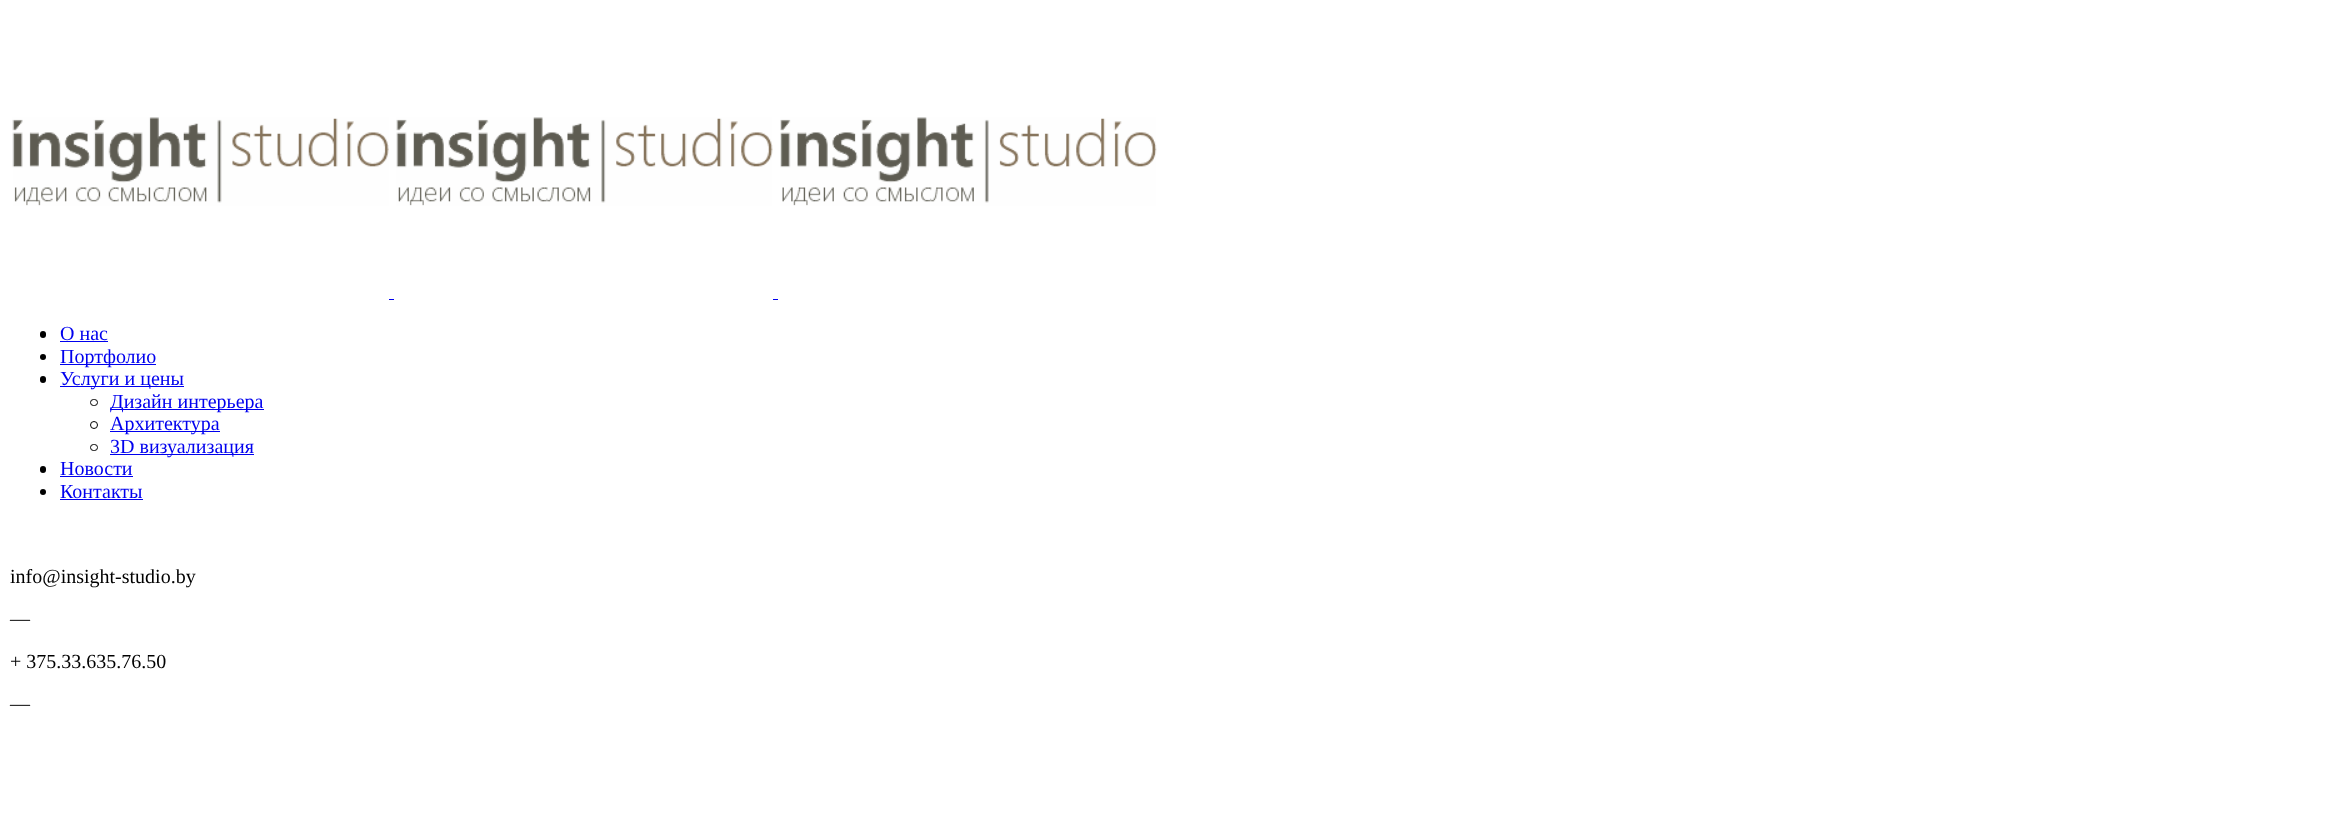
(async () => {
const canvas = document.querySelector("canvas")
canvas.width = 2336
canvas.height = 815
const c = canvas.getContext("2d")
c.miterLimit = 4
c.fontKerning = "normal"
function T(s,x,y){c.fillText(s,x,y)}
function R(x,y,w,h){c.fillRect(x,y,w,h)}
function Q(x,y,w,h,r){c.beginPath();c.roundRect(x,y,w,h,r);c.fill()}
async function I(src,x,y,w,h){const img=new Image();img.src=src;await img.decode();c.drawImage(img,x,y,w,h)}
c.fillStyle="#fff"
R(0,0,2336,815)
await I("1.png",12,117,377,89)
await I("2.png",396,117,377,89)
await I("3.png",780,117,377,89)
c.fillStyle="#00e"
R(389,299,5,1)
R(773,299,5,1)
c.fillStyle="#000"
Q(40,331,6,7,3)
c.font="20px Liberation Serif"
c.fillStyle="#00e"
T("О нас",60,340)
R(60,341,48,1)
c.fillStyle="#000"
c.beginPath()
c.arc(43,357,3,0,7)
c.fill()
c.fillStyle="#00e"
R(60,364,96,1)
T("Портфолио",60,363)
c.fillStyle="#000"
Q(40,376,6,7,3)
c.fillStyle="#00e"
R(60,386,124,1)
T("Услуги и цены",60,385)
c.beginPath()
c.roundRect(90.5,399.5,7,6,3)
c.strokeStyle="#000"
c.stroke()
R(110,409,154,1)
T("Дизайн интерьера",110,408)
c.beginPath()
c.arc(94,425,3.5,0,7)
c.stroke()
R(110,431,110,1)
T("Архитектура",110,430)
c.beginPath()
c.roundRect(90.5,444.5,7,6,3)
c.stroke()
R(110,454,144,1)
T("3D визуализация",110,453)
c.fillStyle="#000"
Q(40,466,6,7,3)
c.fillStyle="#00e"
T("Новости",60,475)
R(60,476,73,1)
c.fillStyle="#000"
c.beginPath()
c.arc(43,492,3,0,7)
c.fill()
c.fillStyle="#00e"
T("Контакты",60,498)
R(60,499,83,1)
c.fillStyle="#000"
T("info@insight-studio.by",10,583)
T("—",10,625)
T("+ 375.33.635.76.50",10,668)
T("—",10,710)
})()
